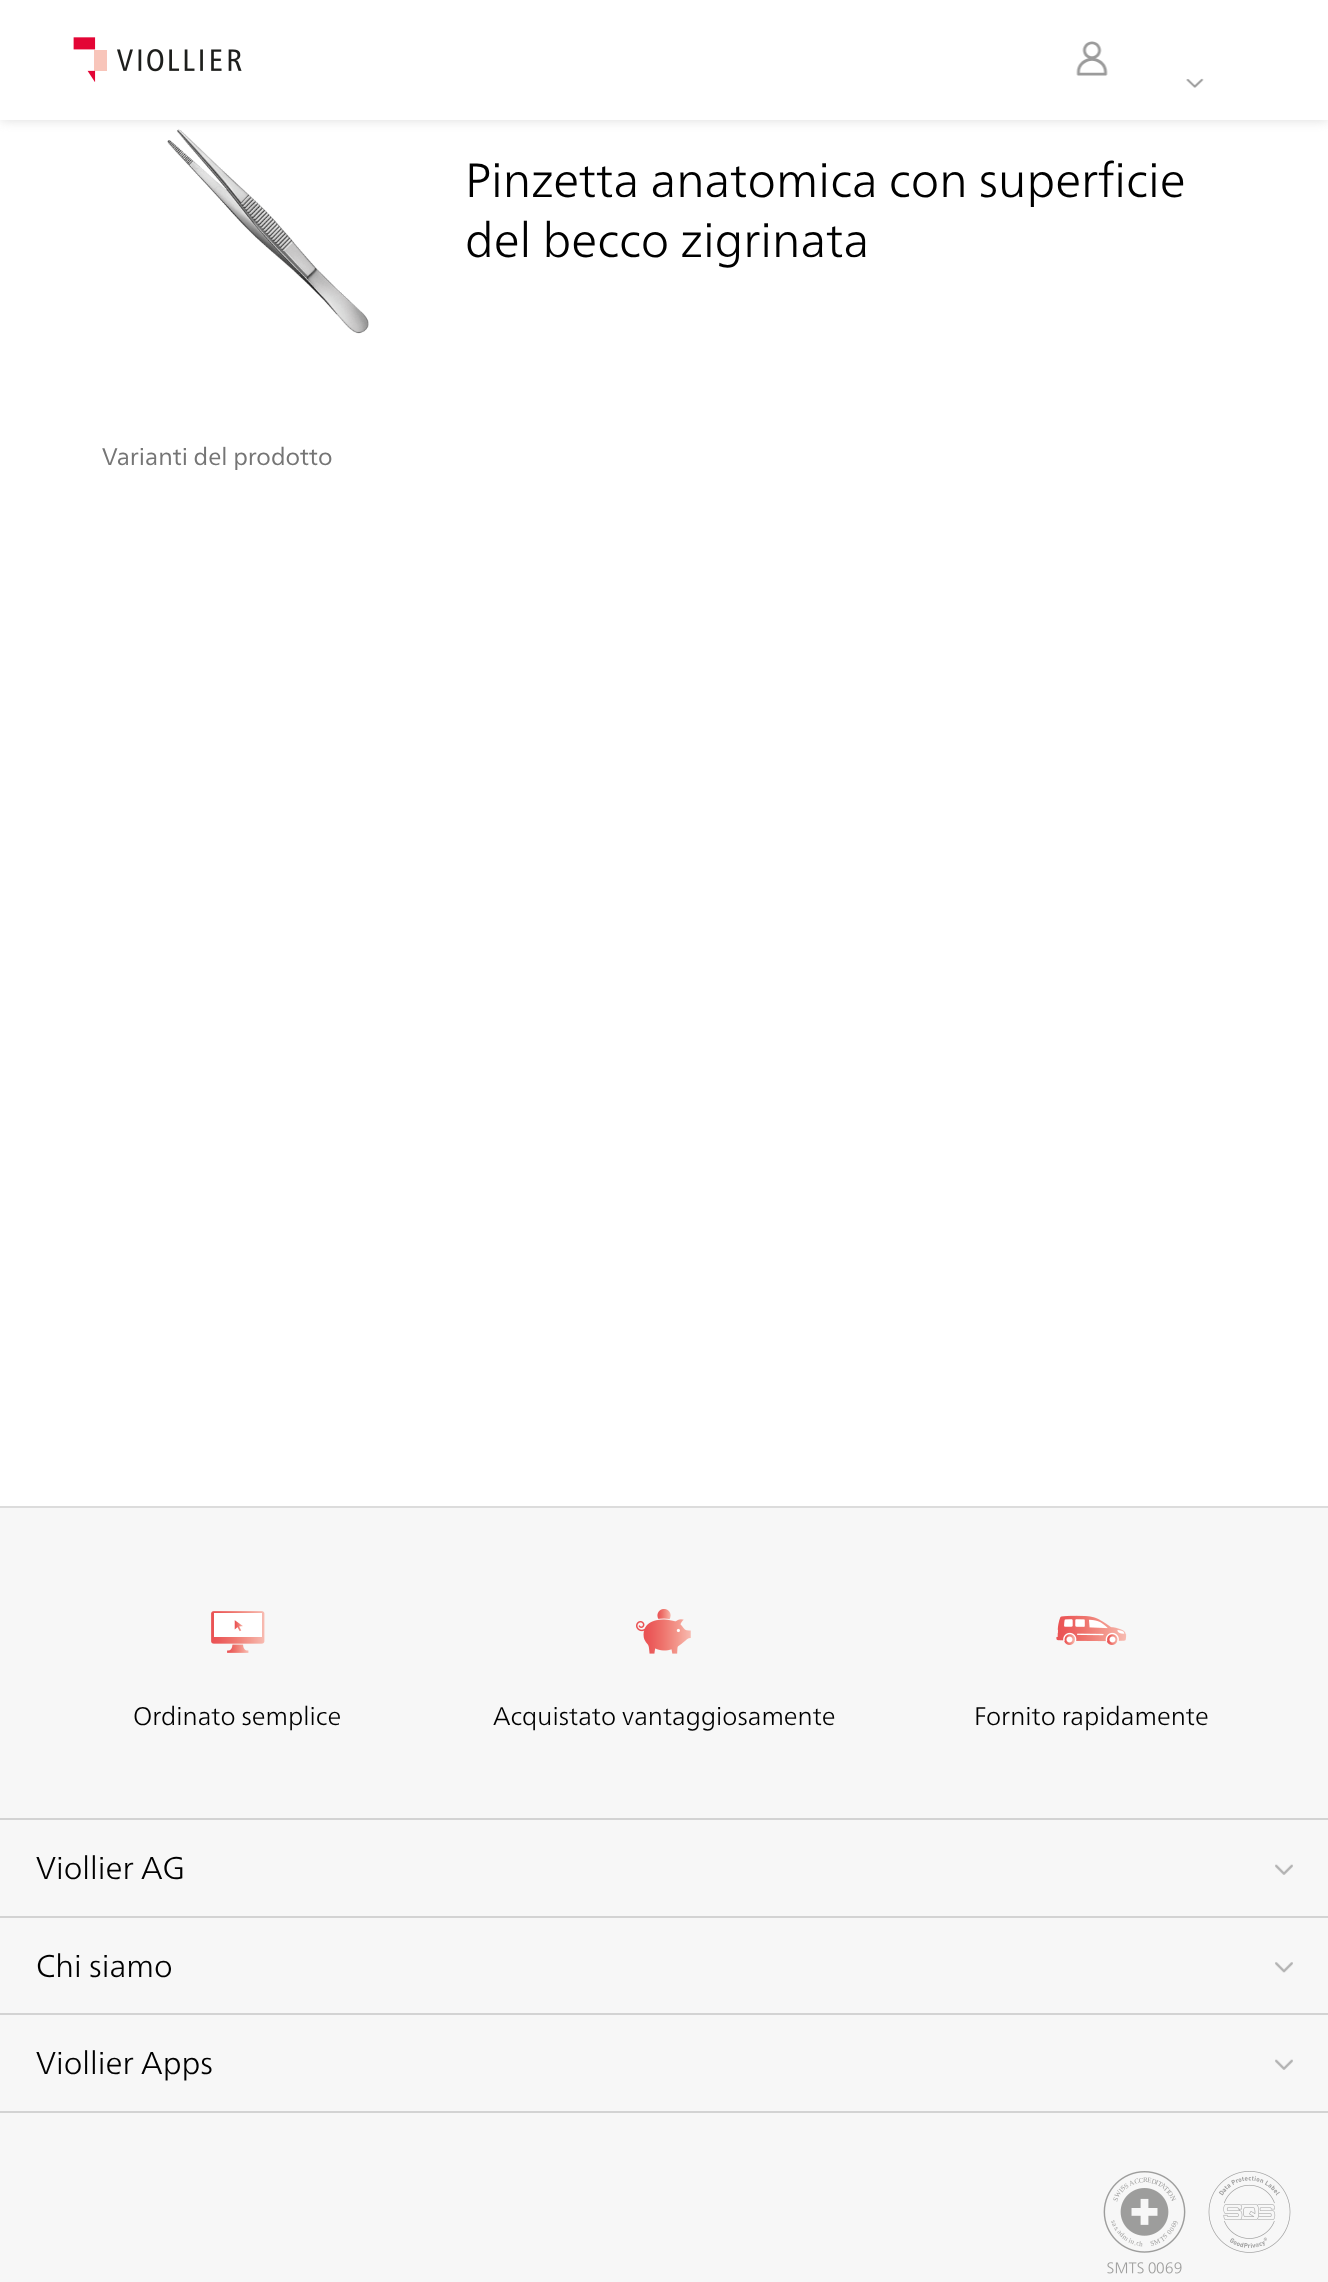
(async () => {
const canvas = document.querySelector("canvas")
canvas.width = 1328
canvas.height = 2282
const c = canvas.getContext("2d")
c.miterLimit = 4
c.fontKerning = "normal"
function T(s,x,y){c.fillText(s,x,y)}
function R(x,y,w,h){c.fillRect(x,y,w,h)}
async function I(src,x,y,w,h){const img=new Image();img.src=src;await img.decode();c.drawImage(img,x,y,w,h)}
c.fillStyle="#fff"
R(0,0,1328,2282)
await I("4.png",167,129,202,205)
c.save()
c.beginPath()
c.rect(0,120,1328,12)
c.clip()
c.fillStyle="#dcdcdc"
c.filter="blur(6px)"
c.beginPath()
c.rect(0,0,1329,120)
c.fill()
c.filter="none"
c.restore()
await I("1.png",73,37,169,45)
await I("2.png",1076,41,32,35)
await I("3.png",1186,78,18,10)
c.font="300 48px 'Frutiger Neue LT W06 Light'"
c.fillStyle="#000"
T("Pinzetta anatomica con superficie",465,197)
T("del becco zigrinata",465,257)
c.font="24px 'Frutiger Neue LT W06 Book'"
c.fillStyle="#757575"
T("Varianti del prodotto",102,465)
c.fillStyle="#f7f7f7"
R(0,1508,1328,774)
c.fillStyle="#dcdcdc"
R(0,1506,1328,2)
await I("5.png",211,1611,54,42)
c.font="300 25.5px 'Frutiger Neue LT W06 Light'"
c.fillStyle="#000"
T("Ordinato semplice",133,1725)
await I("6.png",636,1609,55,45)
T("Acquistato vantaggiosamente",493,1725)
await I("7.png",1056,1615,71,30)
T("Fornito rapidamente",974,1725)
c.fillStyle="#d3d3d3"
R(0,1916,1328,2)
R(0,1818,1328,2)
c.font="300 31.5px 'Frutiger Neue LT W06 Light'"
c.fillStyle="#000"
T("Viollier AG",36,1879)
await I("8.png",1275,1864,18,11)
c.fillStyle="#d3d3d3"
R(0,2013,1328,2)
c.fillStyle="#000"
T("Chi siamo",36,1977)
await I("9.png",1275,1962,18,11)
c.fillStyle="#d3d3d3"
R(0,2111,1328,2)
c.fillStyle="#000"
T("Viollier Apps",36,2074)
await I("8.png",1275,2059,18,11)
await I("10.png",1103,2171,83,103)
c.font="7px Liberation Serif"
c.fillStyle="#9d9d9c"
c.save()
c.translate(1130,2186)
c.rotate(-23.7 * Math.PI / 180)
c.fillText("A",0,0)
c.restore()
c.save()
c.translate(1135,2184)
c.rotate(-15.1 * Math.PI / 180)
c.fillText("C",0,0)
c.restore()
c.save()
c.translate(1139,2183)
c.rotate(-7.3 * Math.PI / 180)
c.fillText("C",0,0)
c.restore()
c.save()
c.translate(1143,2182)
c.rotate(0.7 * Math.PI / 180)
c.fillText("R",0,0)
c.restore()
c.save()
c.translate(1147,2182)
c.rotate(8.3 * Math.PI / 180)
c.fillText("E",0,0)
c.restore()
c.save()
c.translate(1151,2183)
c.rotate(16.6 * Math.PI / 180)
c.fillText("D",0,0)
c.restore()
c.save()
c.translate(1155,2184)
c.rotate(22.9 * Math.PI / 180)
c.fillText("I",0,0)
c.restore()
c.save()
c.translate(1118,2198)
c.rotate(-56.5 * Math.PI / 180)
c.fillText("W",0,0)
c.restore()
c.save()
c.translate(1122,2193)
c.rotate(-48.3 * Math.PI / 180)
c.fillText("I",0,0)
c.restore()
c.save()
c.translate(1123,2191)
c.rotate(-42.8 * Math.PI / 180)
c.fillText("S",0,0)
c.restore()
c.save()
c.translate(1126,2189)
c.rotate(-35.6 * Math.PI / 180)
c.fillText("S",0,0)
c.restore()
c.save()
c.translate(1157,2185)
c.rotate(28.3 * Math.PI / 180)
c.fillText("T",0,0)
c.restore()
c.save()
c.translate(1160,2186)
c.rotate(35.6 * Math.PI / 180)
c.fillText("A",0,0)
c.restore()
c.save()
c.translate(1163,2189)
c.rotate(42.9 * Math.PI / 180)
c.fillText("T",0,0)
c.restore()
c.save()
c.translate(1166,2192)
c.rotate(48.4 * Math.PI / 180)
c.fillText("I",0,0)
c.restore()
c.save()
c.translate(1167,2193)
c.rotate(55.2 * Math.PI / 180)
c.fillText("O",0,0)
c.restore()
c.save()
c.translate(1117,2202)
c.rotate(-66.5 * Math.PI / 180)
c.fillText("S",0,0)
c.restore()
c.save()
c.translate(1170,2197)
c.rotate(64.8 * Math.PI / 180)
c.fillText("N",0,0)
c.restore()
c.save()
c.translate(1111,2221)
c.rotate(72 * Math.PI / 180)
c.fillText("s",0,0)
c.restore()
c.save()
c.translate(1177,2225)
c.rotate(-72 * Math.PI / 180)
c.fillText("9",0,0)
c.restore()
c.save()
c.translate(1112,2224)
c.rotate(66.4 * Math.PI / 180)
c.fillText("a",0,0)
c.restore()
c.save()
c.translate(1175,2228)
c.rotate(-65 * Math.PI / 180)
c.fillText("6",0,0)
c.restore()
c.save()
c.translate(1114,2228)
c.rotate(59.4 * Math.PI / 180)
c.fillText("s",0,0)
c.restore()
c.save()
c.translate(1173,2232)
c.rotate(-58 * Math.PI / 180)
c.fillText("0",0,0)
c.restore()
c.save()
c.translate(1115,2230)
c.rotate(55.3 * Math.PI / 180)
c.fillText(".",0,0)
c.restore()
c.save()
c.translate(1117,2232)
c.rotate(49.8 * Math.PI / 180)
c.fillText("a",0,0)
c.restore()
c.save()
c.translate(1170,2235)
c.rotate(-51.2 * Math.PI / 180)
c.fillText("0",0,0)
c.restore()
c.save()
c.translate(1119,2235)
c.rotate(43 * Math.PI / 180)
c.fillText("d",0,0)
c.restore()
c.save()
c.translate(1155,2245)
c.rotate(-23.6 * Math.PI / 180)
c.fillText("M",0,0)
c.restore()
c.save()
c.translate(1162,2242)
c.rotate(-33.4 * Math.PI / 180)
c.fillText("T",0,0)
c.restore()
c.save()
c.translate(1165,2239)
c.rotate(-40.2 * Math.PI / 180)
c.fillText("S",0,0)
c.restore()
c.save()
c.translate(1122,2238)
c.rotate(34.7 * Math.PI / 180)
c.fillText("m",0,0)
c.restore()
c.save()
c.translate(1130,2243)
c.rotate(22.2 * Math.PI / 180)
c.fillText("n",0,0)
c.restore()
c.save()
c.translate(1128,2242)
c.rotate(26.4 * Math.PI / 180)
c.fillText("i",0,0)
c.restore()
c.save()
c.translate(1134,2245)
c.rotate(16.6 * Math.PI / 180)
c.fillText(".",0,0)
c.restore()
c.save()
c.translate(1136,2245)
c.rotate(12.3 * Math.PI / 180)
c.fillText("c",0,0)
c.restore()
c.save()
c.translate(1139,2246)
c.rotate(5.1 * Math.PI / 180)
c.fillText("h",0,0)
c.restore()
c.save()
c.translate(1151,2246)
c.rotate(-15.1 * Math.PI / 180)
c.fillText("S",0,0)
c.restore()
await I("11.png",1208,2171,83,82)
})()
